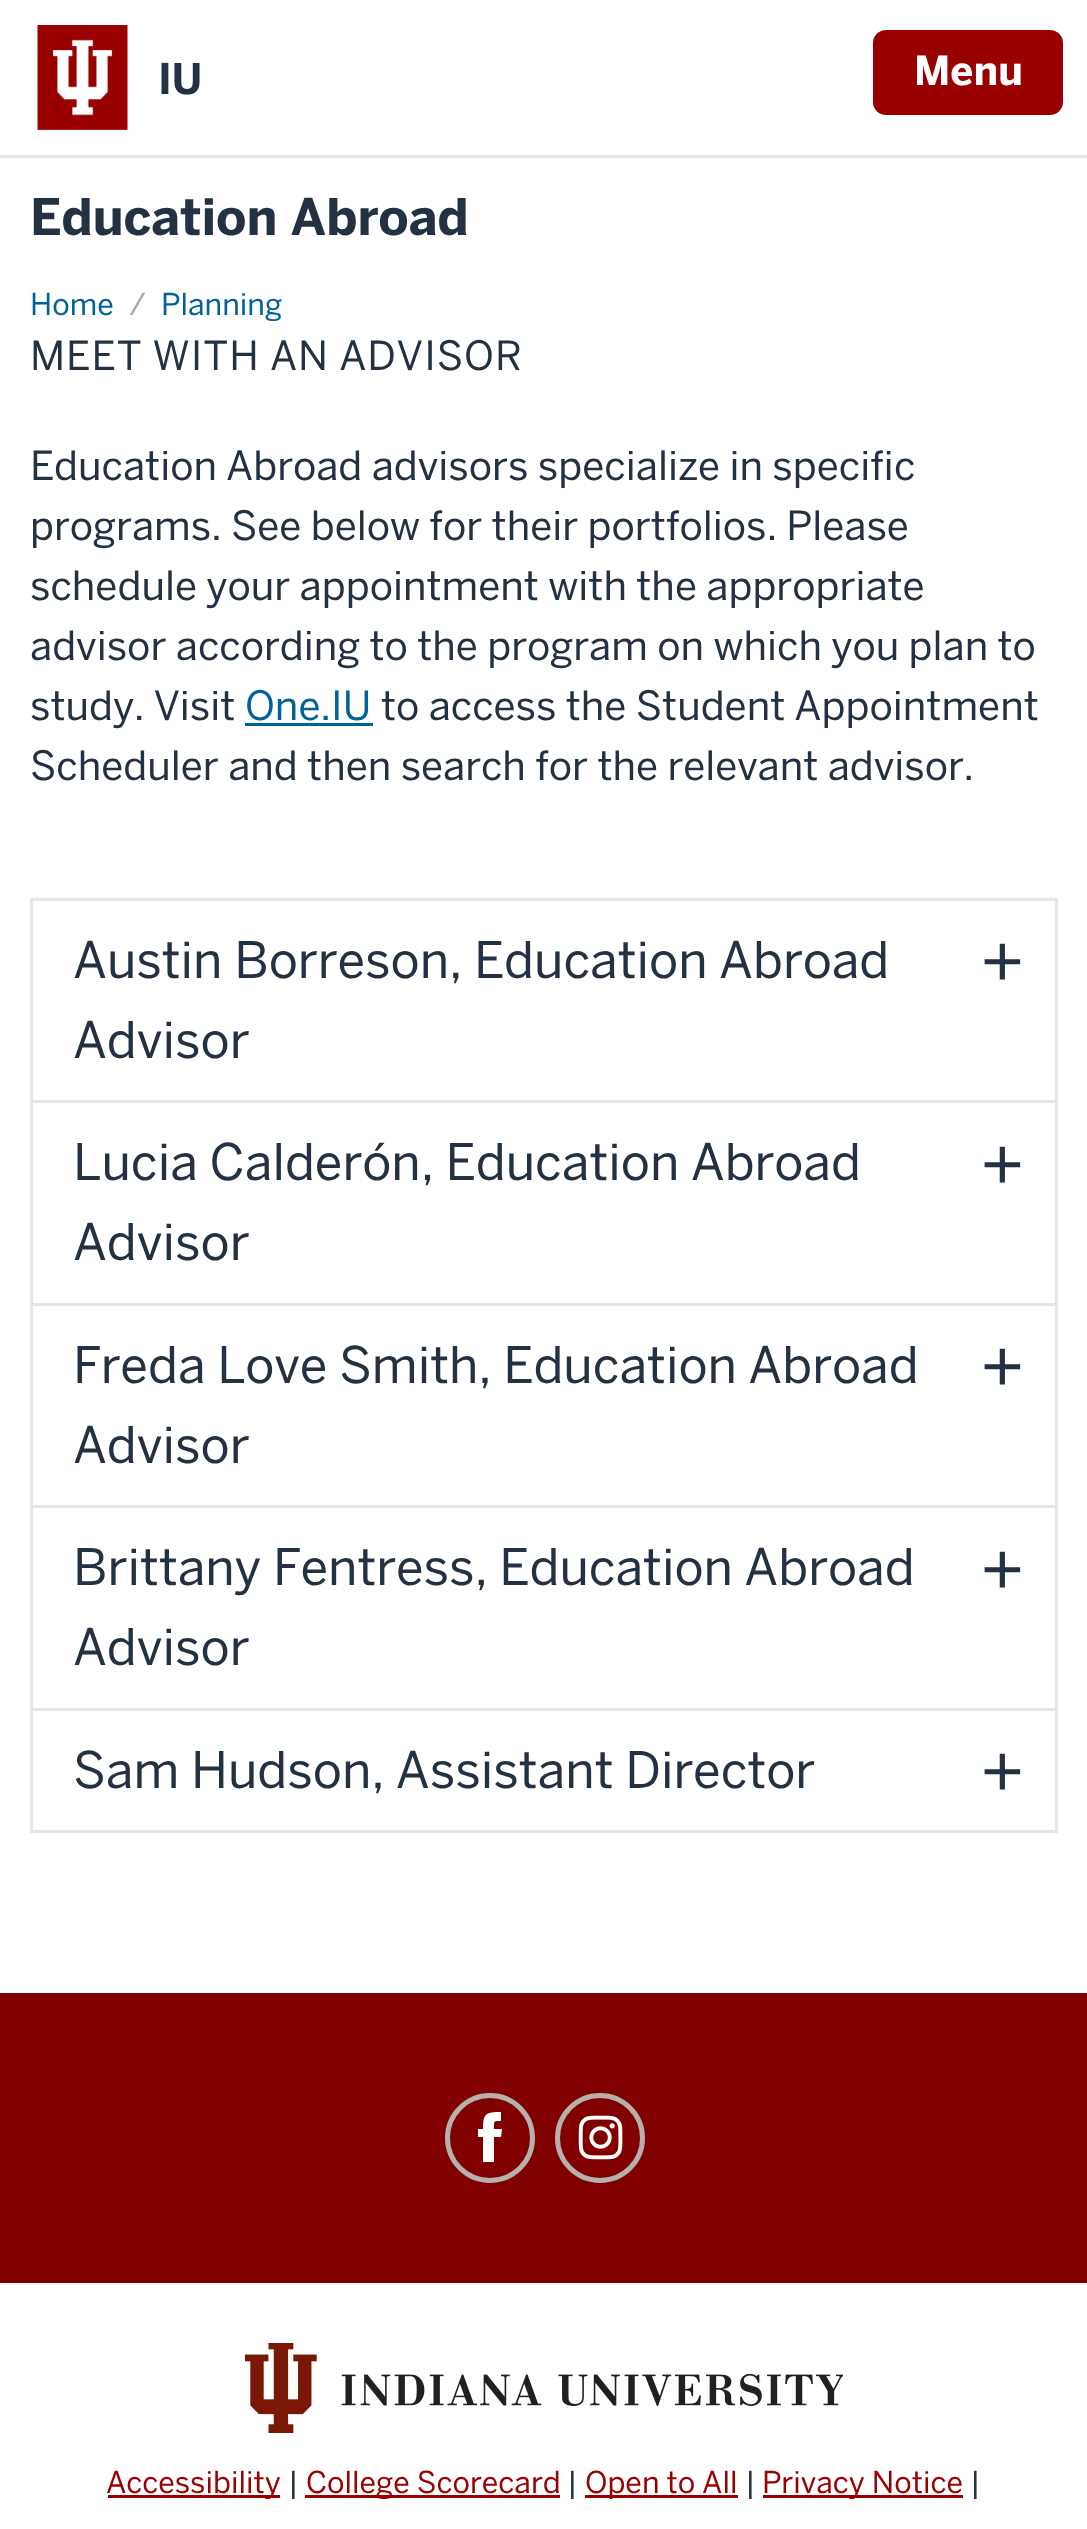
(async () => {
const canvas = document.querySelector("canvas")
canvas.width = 1087
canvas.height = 2529
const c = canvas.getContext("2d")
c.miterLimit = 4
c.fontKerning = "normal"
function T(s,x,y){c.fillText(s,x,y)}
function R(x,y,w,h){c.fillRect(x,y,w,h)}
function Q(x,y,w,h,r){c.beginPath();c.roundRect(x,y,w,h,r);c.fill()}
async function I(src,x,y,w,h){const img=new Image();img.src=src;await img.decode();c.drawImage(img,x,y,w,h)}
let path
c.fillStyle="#fff"
R(0,0,1087,2529)
c.fillStyle="#e2e7e9"
R(0,155,1087,3)
await I("1.png",37,25,91,105)
c.font="bold 42px 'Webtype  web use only'"
c.fillStyle="#243142"
T("IU",158,94)
c.fillStyle="#900"
Q(873,30,190,85,13)
c.font="bold 40px 'Webtype  web use only'"
c.fillStyle="#fff"
T("Menu",914,85)
c.font="bold 50px 'Webtype  web use only'"
c.fillStyle="#243142"
T("Education Abroad",30,235)
c.font="30px 'Webtype  web use only'"
c.fillStyle="#006298"
T("Home",30,315)
c.fillStyle="#aaa"
T("/",129,315)
c.fillStyle="#006298"
T("Planning",161,315)
c.letterSpacing="1px"
c.font="40px 'Webtype  web use only'"
c.fillStyle="#243142"
T("MEET WITH AN ADVISOR",30,370)
c.letterSpacing="0px"
T("Education Abroad advisors specialize in specific",30,480)
T("programs. See below for their portfolios. Please",30,540)
T("schedule your appointment with the appropriate",30,600)
T("advisor according to the program on which you plan to",30,660)
T("study. Visit",30,720)
c.fillStyle="#006298"
T("One.IU",245,720)
R(245,723,128,3)
c.fillStyle="#243142"
T("to access the Student Appointment",381,720)
T("Scheduler and then search for the relevant advisor.",30,780)
c.fillStyle="#e2e7e9"
R(30,1830,1028,3)
R(30,898,1028,3)
R(1055,898,3,202)
R(30,898,3,202)
c.font="50px 'Webtype  web use only'"
c.fillStyle="#243142"
T("Austin Borreson, Education Abroad",73,978)
c.font="70px 'Webtype  web use only'"
T("+",980,985)
c.font="50px 'Webtype  web use only'"
T("Advisor",73,1058)
c.fillStyle="#e2e7e9"
R(30,1100,1028,3)
R(1055,1100,3,203)
R(30,1100,3,203)
c.fillStyle="#243142"
T("Lucia Calderón, Education Abroad",73,1180)
c.font="70px 'Webtype  web use only'"
T("+",980,1188)
c.font="50px 'Webtype  web use only'"
T("Advisor",73,1260)
c.fillStyle="#e2e7e9"
R(30,1303,1028,3)
R(1055,1303,3,202)
R(30,1303,3,202)
c.fillStyle="#243142"
T("Freda Love Smith, Education Abroad",73,1383)
c.font="70px 'Webtype  web use only'"
T("+",980,1390)
c.font="50px 'Webtype  web use only'"
T("Advisor",73,1463)
c.fillStyle="#e2e7e9"
R(30,1505,1028,3)
R(1055,1505,3,203)
R(30,1505,3,203)
c.fillStyle="#243142"
T("Brittany Fentress, Education Abroad",73,1585)
c.font="70px 'Webtype  web use only'"
T("+",980,1593)
c.font="50px 'Webtype  web use only'"
T("Advisor",73,1665)
c.fillStyle="#e2e7e9"
R(30,1708,1028,3)
R(1055,1708,3,122)
R(30,1708,3,122)
c.fillStyle="#243142"
T("Sam Hudson, Assistant Director",73,1788)
c.font="70px 'Webtype  web use only'"
T("+",980,1795)
c.fillStyle="#800000"
R(0,1993,1087,290)
c.beginPath()
c.arc(490,2138,42.5,0,7)
c.strokeStyle="#b8b0ab"
c.lineWidth=5
c.stroke()
c.fillStyle="#fff"
path = new Path2D("M501 2137h-7v25h-11v-25h-5v-8h5c0-16 3-17 18-17v9c-7 0-7-1-7 8h8z")
c.fill(path)
c.beginPath()
c.arc(600,2138,42.5,0,7)
c.stroke()
await I("2.png",578,2115,45,45)
await I("3.png",245,2343,598,90)
c.fillStyle="#900"
R(108,2495,172,3)
c.font="30px 'Webtype  web use only'"
T("Accessibility",106,2493)
c.fillStyle="#243142"
T("|",288,2493)
c.fillStyle="#900"
R(305,2495,255,3)
T("College Scorecard",306,2493)
c.fillStyle="#243142"
T("|",567,2493)
c.fillStyle="#900"
R(585,2495,153,3)
T("Open to All",585,2493)
c.fillStyle="#243142"
T("|",745,2493)
c.fillStyle="#900"
R(763,2495,200,3)
T("Privacy Notice",762,2493)
c.fillStyle="#243142"
T("|",970,2493)
})()
